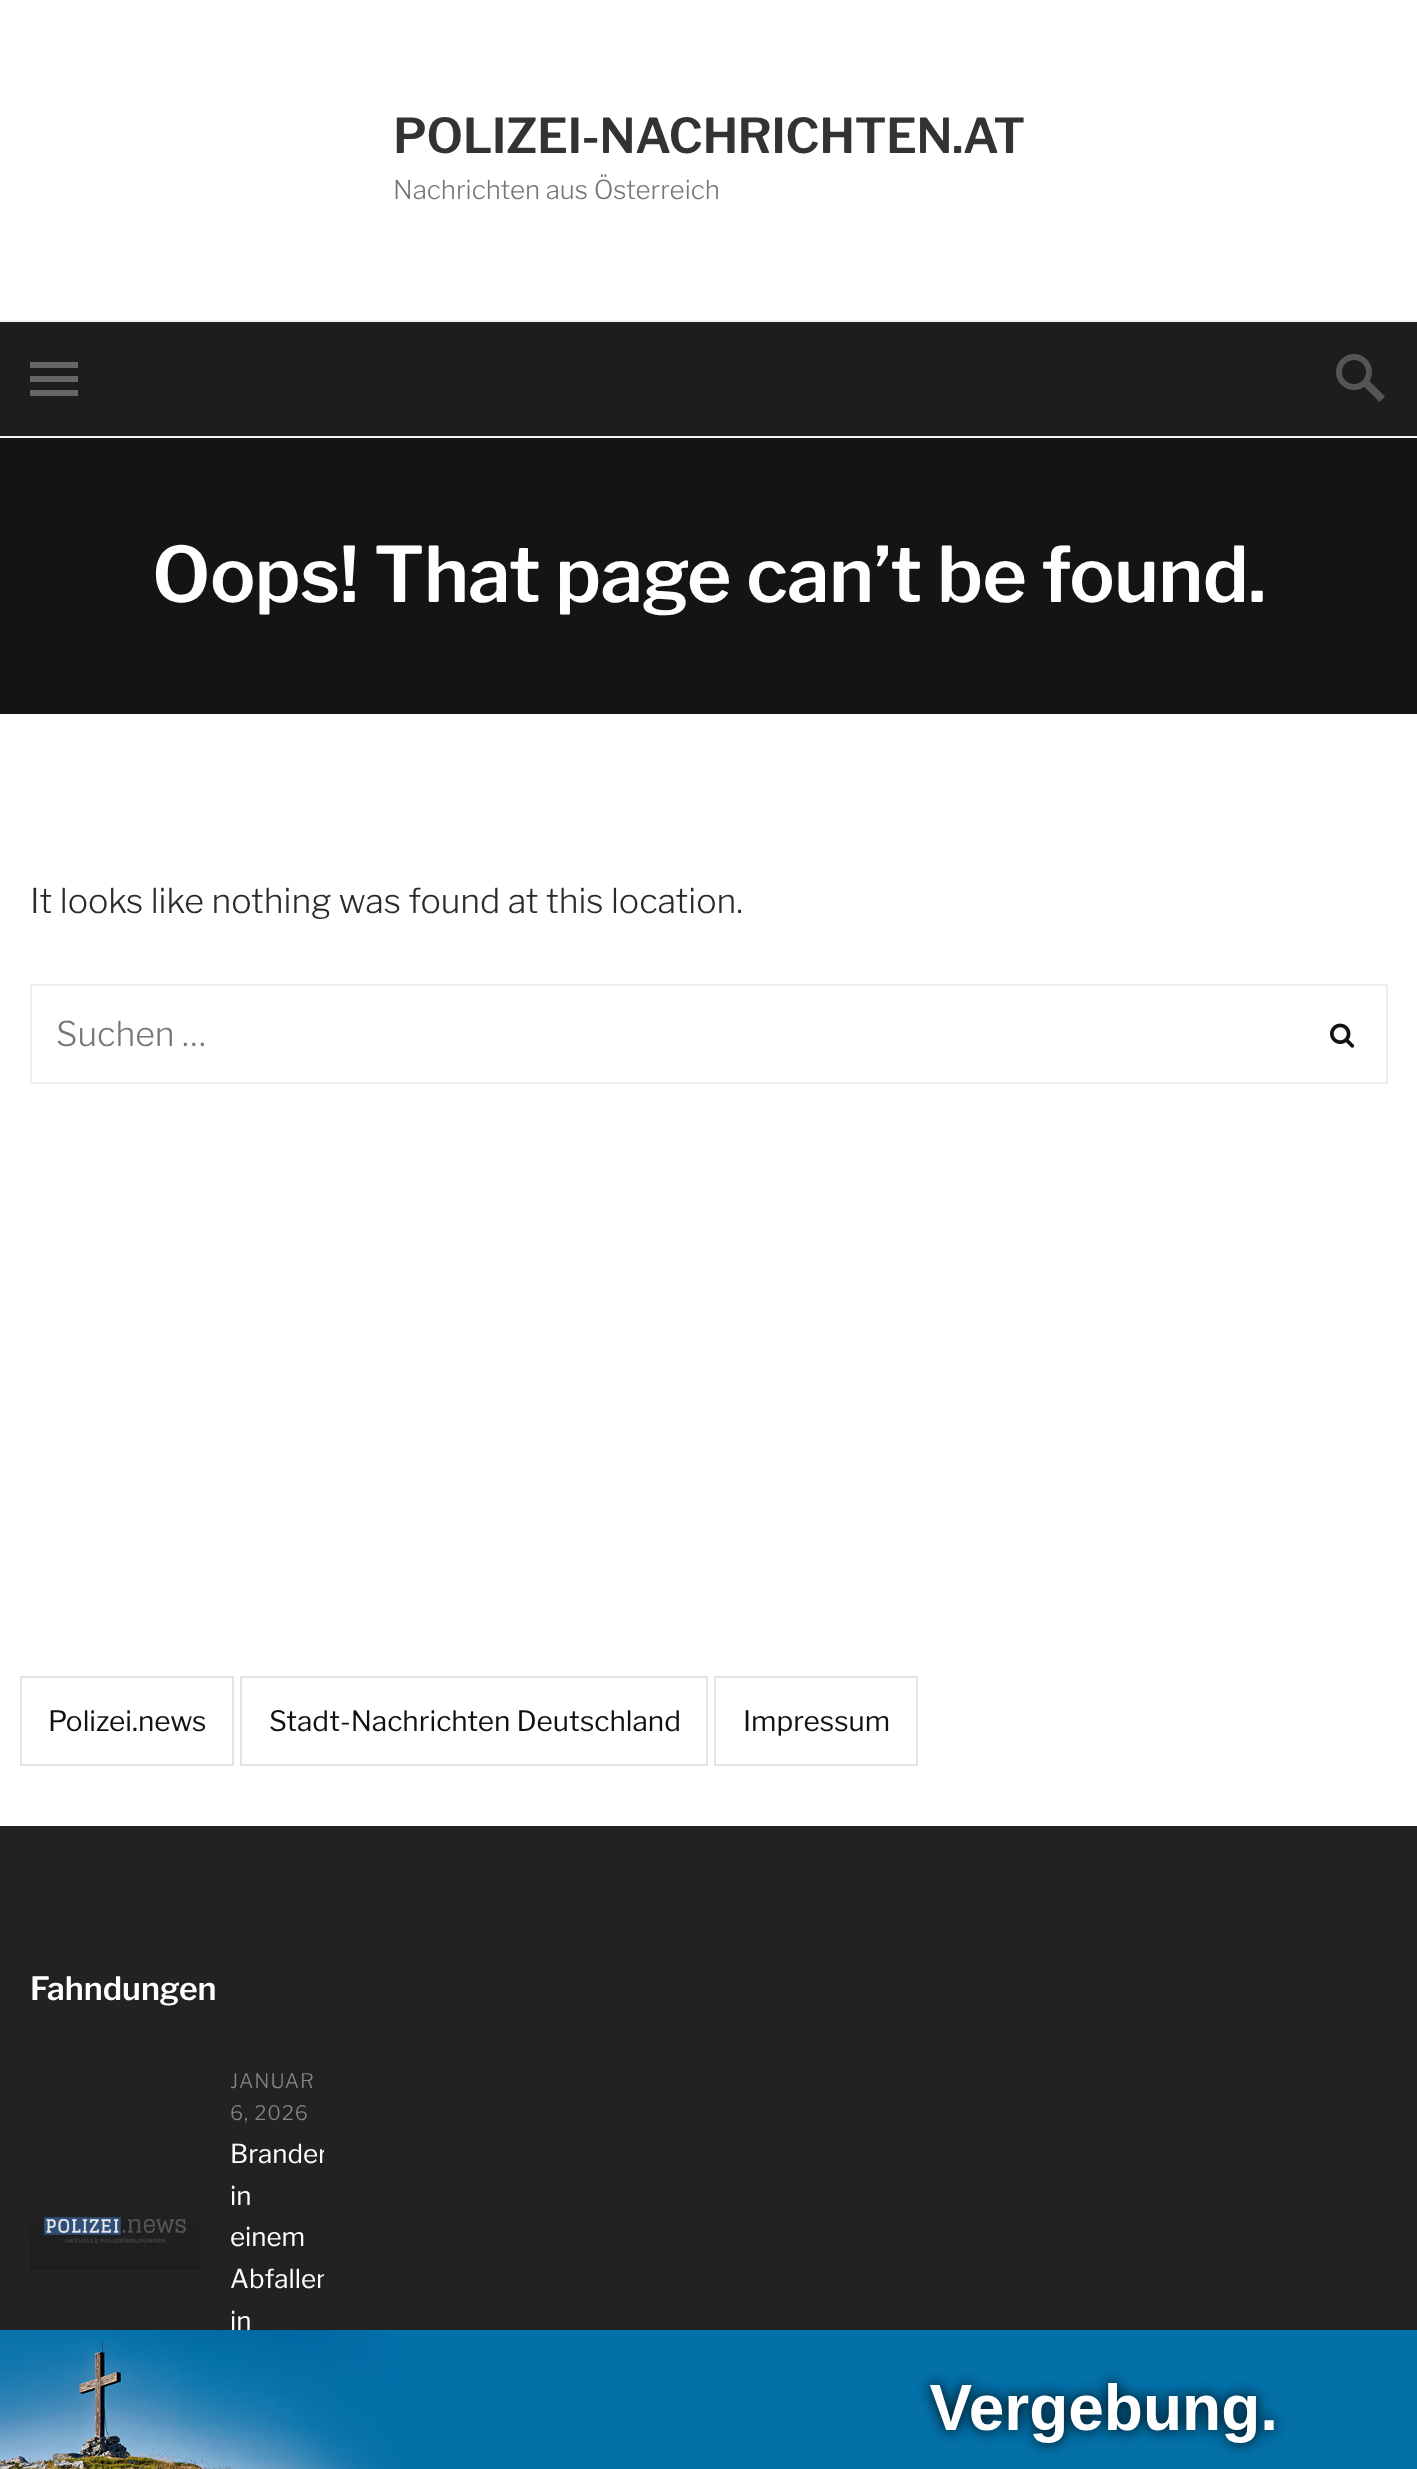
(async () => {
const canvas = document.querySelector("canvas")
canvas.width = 1417
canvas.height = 2469
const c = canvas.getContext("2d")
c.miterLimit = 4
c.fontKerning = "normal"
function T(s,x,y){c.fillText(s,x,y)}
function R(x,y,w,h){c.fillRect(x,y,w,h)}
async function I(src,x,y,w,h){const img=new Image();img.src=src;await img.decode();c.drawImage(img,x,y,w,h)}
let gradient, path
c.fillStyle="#fff"
R(0,0,1417,2469)
c.letterSpacing="-0.6px"
c.font="100 48px 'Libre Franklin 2'"
c.fillStyle="#333"
T("POLIZEI-NACHRICHTEN.AT",393,153)
c.letterSpacing="0px"
c.font="100 26px 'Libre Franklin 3'"
c.fillStyle="#777"
T("Nachrichten aus Österreich",393,199)
c.fillStyle="#1d1d1d"
R(0,322,1417,114)
c.fillStyle="#f2f2f2"
R(0,320,1417,2)
R(0,436,1417,2)
c.fillStyle="#666"
R(30,362,48,6)
R(30,376,48,6)
R(30,390,48,6)
c.fillStyle="#555"
c.beginPath()
c.arc(1354,372,18,0,7)
c.fill()
c.fillStyle="#1d1d1d"
c.beginPath()
c.arc(1354,372,12,0,7)
c.fill()
c.fillStyle="#555"
path = new Path2D("M1369.5 381l15.5 15.5l-5.5 5.5l-15.5-15.5c-2-1.5-2-4 0-5.5c1.5-2 4-2 5.5 0z")
c.fill(path)
c.fillStyle="#141414"
R(0,438,1417,276)
c.letterSpacing="-0.6px"
c.font="100 76px 'Libre Franklin 2'"
c.fillStyle="#fff"
T("Oops! That page can’t be found.",152,602)
c.letterSpacing="0px"
c.font="100 34px 'Libre Franklin 3'"
c.fillStyle="#2b2b2b"
T("It looks like nothing was found at this location.",30,913)
c.strokeStyle="#eee"
c.lineWidth=2
c.strokeRect(31,985,1356,98)
c.fillStyle="#777"
T("Suchen …",56,1046)
await I("1.png",1330,1023,25,25)
c.strokeStyle="#e2e2e2"
c.strokeRect(21,1677,212,88)
c.font="100 28px Libre Franklin"
c.fillStyle="#111"
T("Polizei.news",48,1731)
c.strokeRect(241,1677,466,88)
T("Stadt-Nachrichten Deutschland",269,1731)
c.strokeRect(715,1677,202,88)
T("Impressum",743,1731)
await I("2.png",0,2330,1417,139)
c.fillStyle="#222"
R(0,1826,1417,504)
c.font="100 32px 'Libre Franklin 2'"
c.fillStyle="#fff"
T("Fahndungen",30,2000)
await I("3.png",44,2217,142,26)
gradient = c.createLinearGradient(115,2182,115,2270)
gradient.addColorStop(0,"#00000005")
gradient.addColorStop(1,"#00000024")
c.fillStyle = gradient
R(30,2217,170,53)
c.letterSpacing="1px"
c.font="100 20px 'Libre Franklin 3'"
c.fillStyle="#878787"
T("JANUAR",230,2088)
T("6, 2026",230,2120)
c.save()
c.beginPath()
c.rect(30,2064,294,354)
c.clip()
c.letterSpacing="0px"
c.font="100 26px Libre Franklin"
c.fillStyle="#fff"
T("Brander",230,2163)
c.restore()
c.letterSpacing="0px"
c.font="100 26px Libre Franklin"
c.fillStyle="#fff"
T("in",230,2205)
T("einem",230,2246)
c.save()
c.beginPath()
c.rect(30,2064,294,354)
c.clip()
T("Abfallen",230,2288)
c.restore()
T("in",230,2330)
})()
